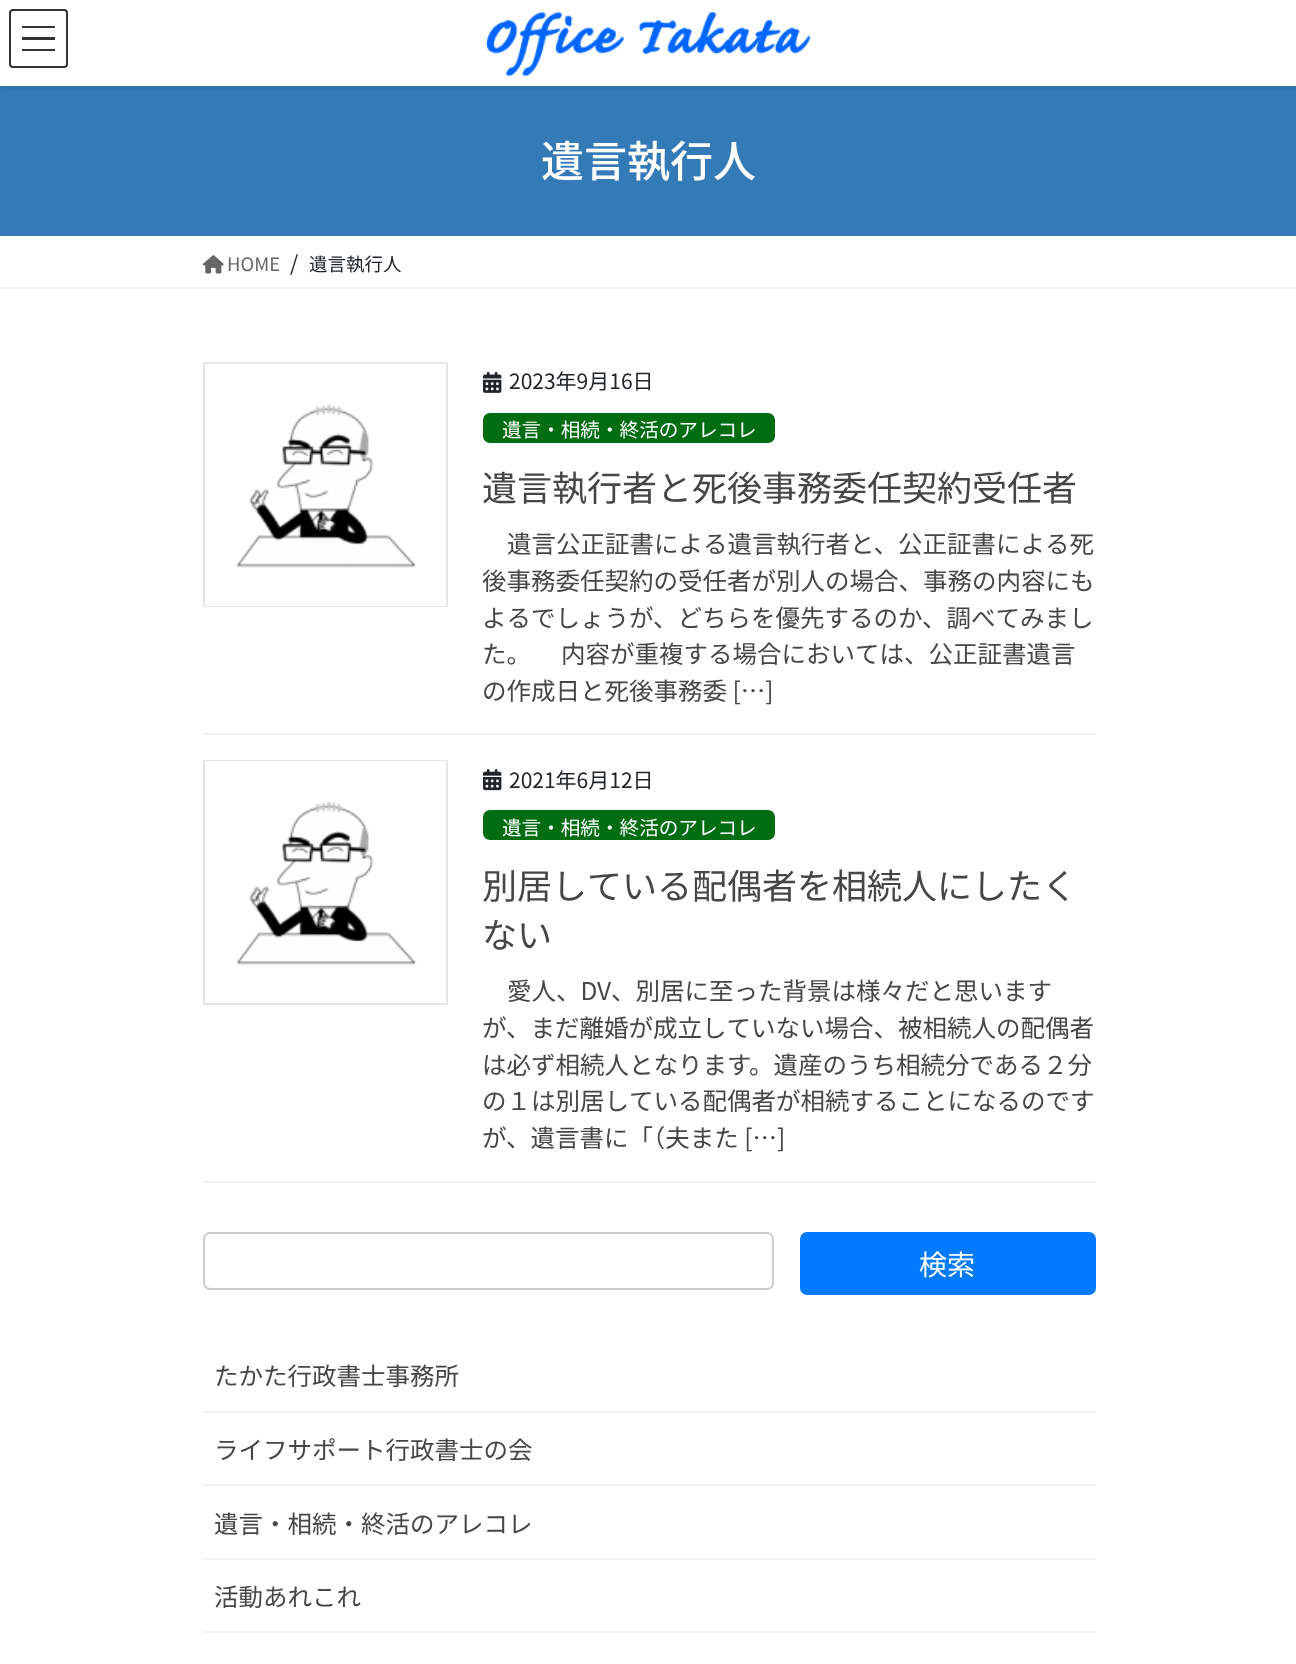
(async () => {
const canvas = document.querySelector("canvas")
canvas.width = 1296
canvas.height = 1664
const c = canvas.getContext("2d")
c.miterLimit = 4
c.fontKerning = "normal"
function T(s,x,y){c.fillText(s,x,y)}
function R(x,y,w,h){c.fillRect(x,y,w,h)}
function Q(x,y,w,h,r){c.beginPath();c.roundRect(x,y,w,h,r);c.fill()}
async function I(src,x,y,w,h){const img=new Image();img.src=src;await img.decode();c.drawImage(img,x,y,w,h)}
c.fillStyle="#fff"
R(0,0,1296,1664)
c.fillStyle="#337ab7"
R(0,86,1296,150)
c.fillStyle="#0000001a"
c.filter="blur(2.5px)"
c.beginPath()
c.rect(0,2,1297,86)
c.fill()
c.filter="none"
c.fillStyle="#fff"
R(0,0,1296,86)
await I("1.png",485,12,326,65)
c.fillStyle="#333"
R(22,26,33,2)
R(22,37,33,3)
R(22,49,33,2)
c.beginPath()
c.roundRect(10,10,57,57,3)
c.strokeStyle="#333"
c.lineWidth=2
c.stroke()
c.font="500 43px Noto Sans JP"
c.fillStyle="#fff"
T("遺言執行人",541,177)
c.fillStyle="#f2f2f2"
R(0,287,1296,2)
await I("2.png",203,255,21,19)
c.font="18.5px Noto Sans JP"
c.fillStyle="#666"
T("HOME",227,271)
c.font="21px Noto Sans JP"
c.fillStyle="#212529"
T("/",290,271)
c.font="18.5px Noto Sans JP"
T("遺言執行人",309,271)
c.fillStyle="#f2f2f2"
R(203,733,893,2)
c.strokeStyle="#e5e5e5"
c.strokeRect(204,363,243,243)
c.strokeStyle="#fff"
c.strokeRect(206,365,239,240)
await I("3.png",236,404,180,164)
await I("4.png",483,371,19,22)
c.font="21px Noto Sans JP"
c.fillStyle="#212529"
T("2023年9月16日",509,389)
c.fillStyle="#006d12"
Q(483,413,292,30,7)
c.font="19.6px Noto Sans JP"
c.fillStyle="#fff"
T("遺言・相続・終活のアレコレ",502,437)
c.font="35px Noto Sans JP"
c.fillStyle="#464646"
T("遺言執行者と死後事務委任契約受任者",482,501)
c.font="24.5px Noto Sans JP"
T("遺言公正証書による遺言執行者と、公正証書による死",507,553)
T("後事務委任契約の受任者が別人の場合、事務の内容にも",482,590)
T("よるでしょうが、どちらを優先するのか、調べてみまし",482,627)
T("た。 　内容が重複する場合においては、公正証書遺言",482,663)
T("の作成日と死後事務委 […]",482,700)
c.fillStyle="#f2f2f2"
R(203,1181,893,2)
c.strokeStyle="#e5e5e5"
c.strokeRect(204,761,243,243)
c.strokeStyle="#fff"
c.strokeRect(206,762,239,240)
await I("5.png",236,801,181,164)
await I("6.png",483,769,19,22)
c.font="21px Noto Sans JP"
c.fillStyle="#212529"
T("2021年6月12日",509,788)
c.fillStyle="#006d12"
Q(483,810,292,30,7)
c.font="19.6px Noto Sans JP"
c.fillStyle="#fff"
T("遺言・相続・終活のアレコレ",502,835)
c.font="35px Noto Sans JP"
c.fillStyle="#464646"
T("別居している配偶者を相続人にしたく",482,899)
T("ない",482,948)
c.font="24.5px Noto Sans JP"
T("愛人、DV、別居に至った背景は様々だと思います",507,1000)
T("が、まだ離婚が成立していない場合、被相続人の配偶者",482,1037)
T("は必ず相続人となります。遺産のうち相続分である２分",482,1074)
T("の１は別居している配偶者が相続することになるのです",482,1110)
T("が、遺言書に「（夫また […]",482,1147)
c.beginPath()
c.roundRect(204,1233,569,56,6)
c.strokeStyle="#ccc"
c.stroke()
c.fillStyle="#007bff"
Q(800,1232,296,63,7)
c.font="28px Noto Sans JP"
c.fillStyle="#fff"
T("検索",919,1275)
c.fillStyle="#f2f2f2"
R(203,1411,893,2)
c.font="24.5px Noto Sans JP"
c.fillStyle="#464646"
T("たかた行政書士事務所",214,1385)
c.fillStyle="#f2f2f2"
R(203,1484,893,2)
c.fillStyle="#464646"
T("ライフサポート行政書士の会",214,1459)
c.fillStyle="#f2f2f2"
R(203,1558,893,2)
c.fillStyle="#464646"
T("遺言・相続・終活のアレコレ",214,1533)
c.fillStyle="#f2f2f2"
R(203,1631,893,2)
c.fillStyle="#464646"
T("活動あれこれ",214,1606)
})()
